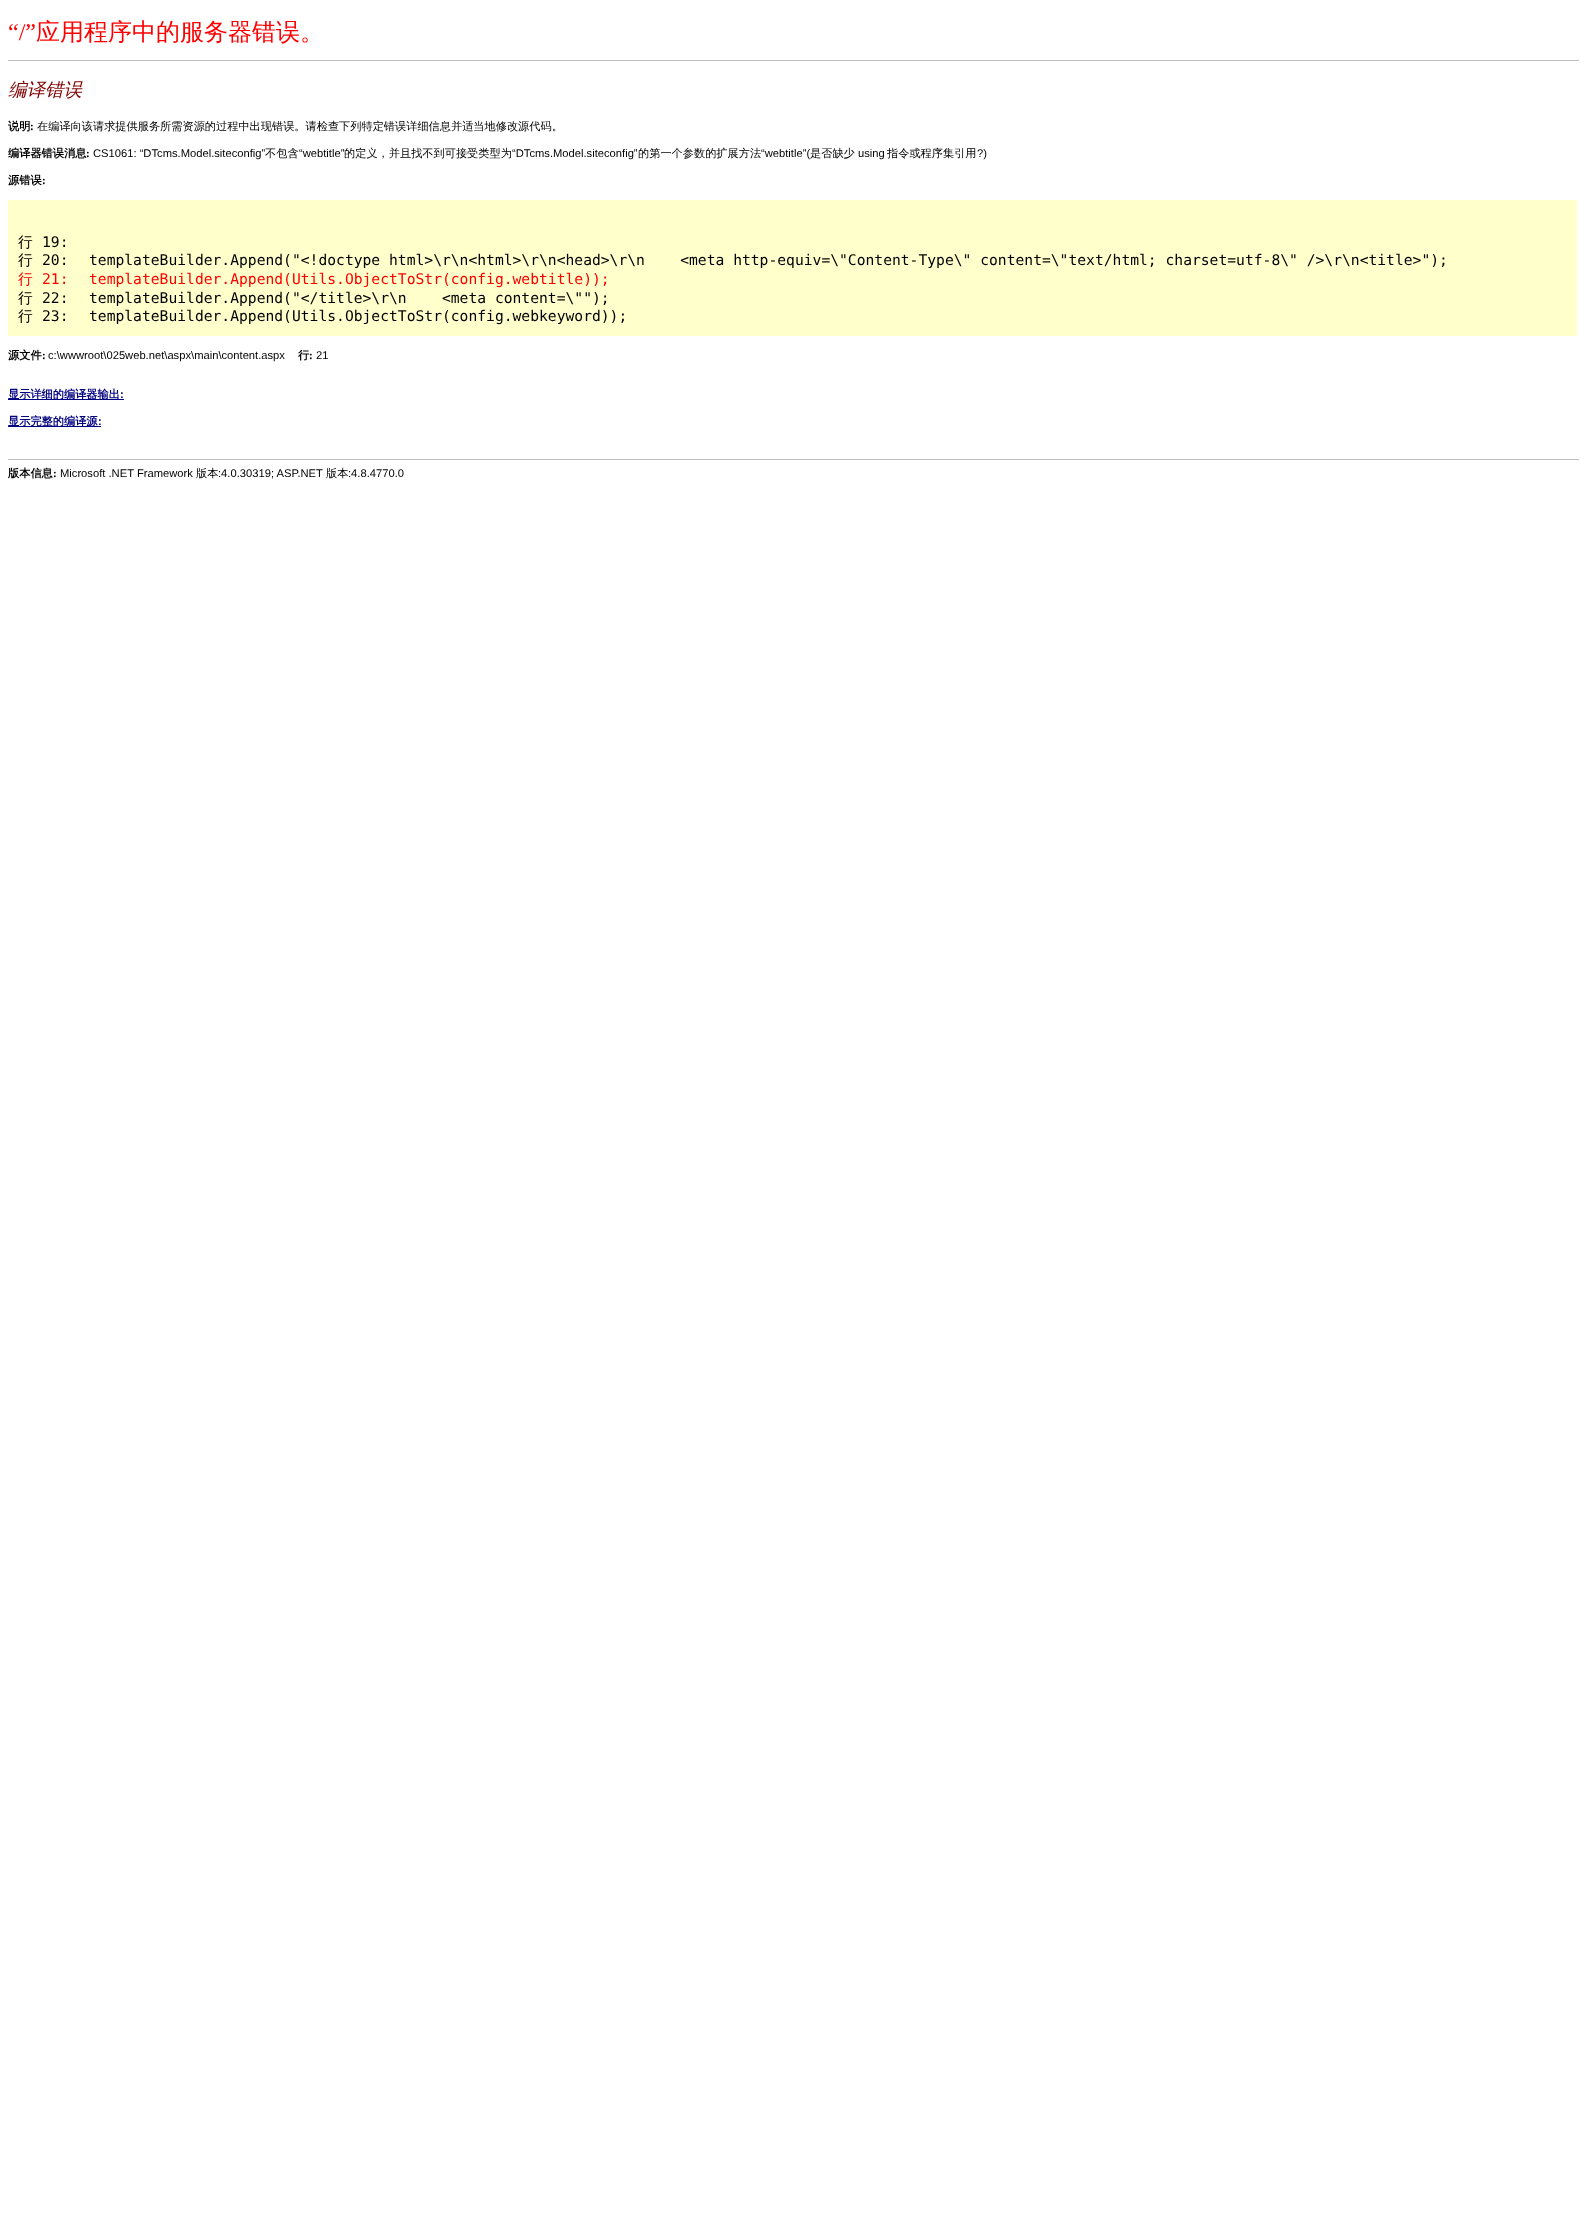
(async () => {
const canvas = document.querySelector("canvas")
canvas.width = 1585
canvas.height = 2220
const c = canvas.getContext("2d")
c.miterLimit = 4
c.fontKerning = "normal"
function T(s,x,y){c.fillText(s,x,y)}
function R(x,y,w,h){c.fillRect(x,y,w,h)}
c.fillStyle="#fff"
R(0,0,1585,2220)
c.font="24px Liberation Serif"
c.fillStyle="#f00"
T("“/”",8,40)
c.font="500 24px WenQuanYi Zen Hei"
T("应用程序中的服务器错误。",36,40)
c.fillStyle="#c0c0c0"
R(8,60,1571,1)
c.font="italic 500 18.5px WenQuanYi Zen Hei"
c.fillStyle="#800000"
T("编译错误",8,96)
c.font="bold 11.2px WenQuanYi Zen Hei"
c.fillStyle="#000"
T("说明",8,130)
c.font="bold 11.2px Liberation Serif"
T(":",30,130)
c.font="500 11.2px WenQuanYi Zen Hei"
T("在编译向该请求提供服务所需资源的过程中出现错误。请检查下列特定错误详细信息并适当地修改源代码。",37,130)
c.font="bold 11.2px WenQuanYi Zen Hei"
T("编译器错误消息",8,157)
c.font="bold 11.2px Liberation Serif"
T(":",86,157)
c.font="11.2px Liberation Sans"
T("CS1061: “DTcms.Model.siteconfig”",93,157)
c.font="500 11.2px WenQuanYi Zen Hei"
T("不包含",265,157)
c.font="11.2px Liberation Sans"
T("“webtitle”",299,157)
c.font="500 11.2px WenQuanYi Zen Hei"
T("的定义，并且找不到可接受类型为",344,157)
c.font="11.2px Liberation Sans"
T("“DTcms.Model.siteconfig”",512,157)
c.font="500 11.2px WenQuanYi Zen Hei"
T("的第一个参数的扩展方法",638,157)
c.font="11.2px Liberation Sans"
T("“webtitle”(",761,157)
c.font="500 11.2px WenQuanYi Zen Hei"
T("是否缺少",810,157)
c.font="11.2px Liberation Sans"
T("using",858,157)
c.font="500 11.2px WenQuanYi Zen Hei"
T("指令或程序集引用",887,157)
c.font="11.2px Liberation Sans"
T("?)",977,157)
c.font="bold 11.2px WenQuanYi Zen Hei"
T("源错误",8,184)
c.font="bold 11.2px Liberation Serif"
T(":",42,184)
c.fillStyle="#ffc"
R(8,200,1569,136)
c.font="500 14.67px WenQuanYi Zen Hei"
c.fillStyle="#000"
T("行",18,247)
c.font="14.67px DejaVu Sans Mono"
T("19:",42,247)
c.font="500 14.67px WenQuanYi Zen Hei"
T("行",18,265)
c.font="14.67px DejaVu Sans Mono"
T("20:",42,265)
T("templateBuilder.Append(\"<!doctype html>\\r\\n<html>\\r\\n<head>\\r\\n    <meta http-equiv=\\\"Content-Type\\\" content=\\\"text/html; charset=utf-8\\\" />\\r\\n<title>\");",89,265)
c.font="500 14.67px WenQuanYi Zen Hei"
c.fillStyle="#f00"
T("行",18,284)
c.font="14.67px DejaVu Sans Mono"
T("21:",42,284)
T("templateBuilder.Append(Utils.ObjectToStr(config.webtitle));",89,284)
c.font="500 14.67px WenQuanYi Zen Hei"
c.fillStyle="#000"
T("行",18,303)
c.font="14.67px DejaVu Sans Mono"
T("22:",42,303)
T("templateBuilder.Append(\"<\/title>\\r\\n    <meta content=\\\"\");",89,303)
c.font="500 14.67px WenQuanYi Zen Hei"
T("行",18,321)
c.font="14.67px DejaVu Sans Mono"
T("23:",42,321)
T("templateBuilder.Append(Utils.ObjectToStr(config.webkeyword));",89,321)
c.font="bold 11.2px WenQuanYi Zen Hei"
T("源文件",8,359)
c.font="bold 11.2px Liberation Serif"
T(":",42,359)
c.font="11.2px Liberation Sans"
T("c:\\wwwroot\\025web.net\\aspx\\main\\content.aspx",48,359)
c.font="bold 11.2px WenQuanYi Zen Hei"
T("行",298,359)
c.font="bold 11.2px Liberation Serif"
T(":",309,359)
c.font="11.2px Liberation Sans"
T("21",316,359)
c.fillStyle="#000080"
R(8,399,116,1)
c.font="bold 11.2px WenQuanYi Zen Hei"
T("显示详细的编译器输出",8,398)
c.font="bold 11.2px Liberation Sans"
T(":",120,398)
R(8,426,93,1)
c.font="bold 11.2px WenQuanYi Zen Hei"
T("显示完整的编译源",8,425)
c.font="bold 11.2px Liberation Sans"
T(":",98,425)
c.fillStyle="#c0c0c0"
R(8,459,1571,1)
c.font="bold 11.2px WenQuanYi Zen Hei"
c.fillStyle="#000"
T("版本信息",8,477)
c.font="bold 11.2px Liberation Serif"
T(":",53,477)
c.font="11.2px Liberation Sans"
T("Microsoft .NET Framework",60,477)
c.font="500 11.2px WenQuanYi Zen Hei"
T("版本",196,477)
c.font="11.2px Liberation Sans"
T(":4.0.30319; ASP.NET",218,477)
c.font="500 11.2px WenQuanYi Zen Hei"
T("版本",326,477)
c.font="11.2px Liberation Sans"
T(":4.8.4770.0",348,477)
})()
